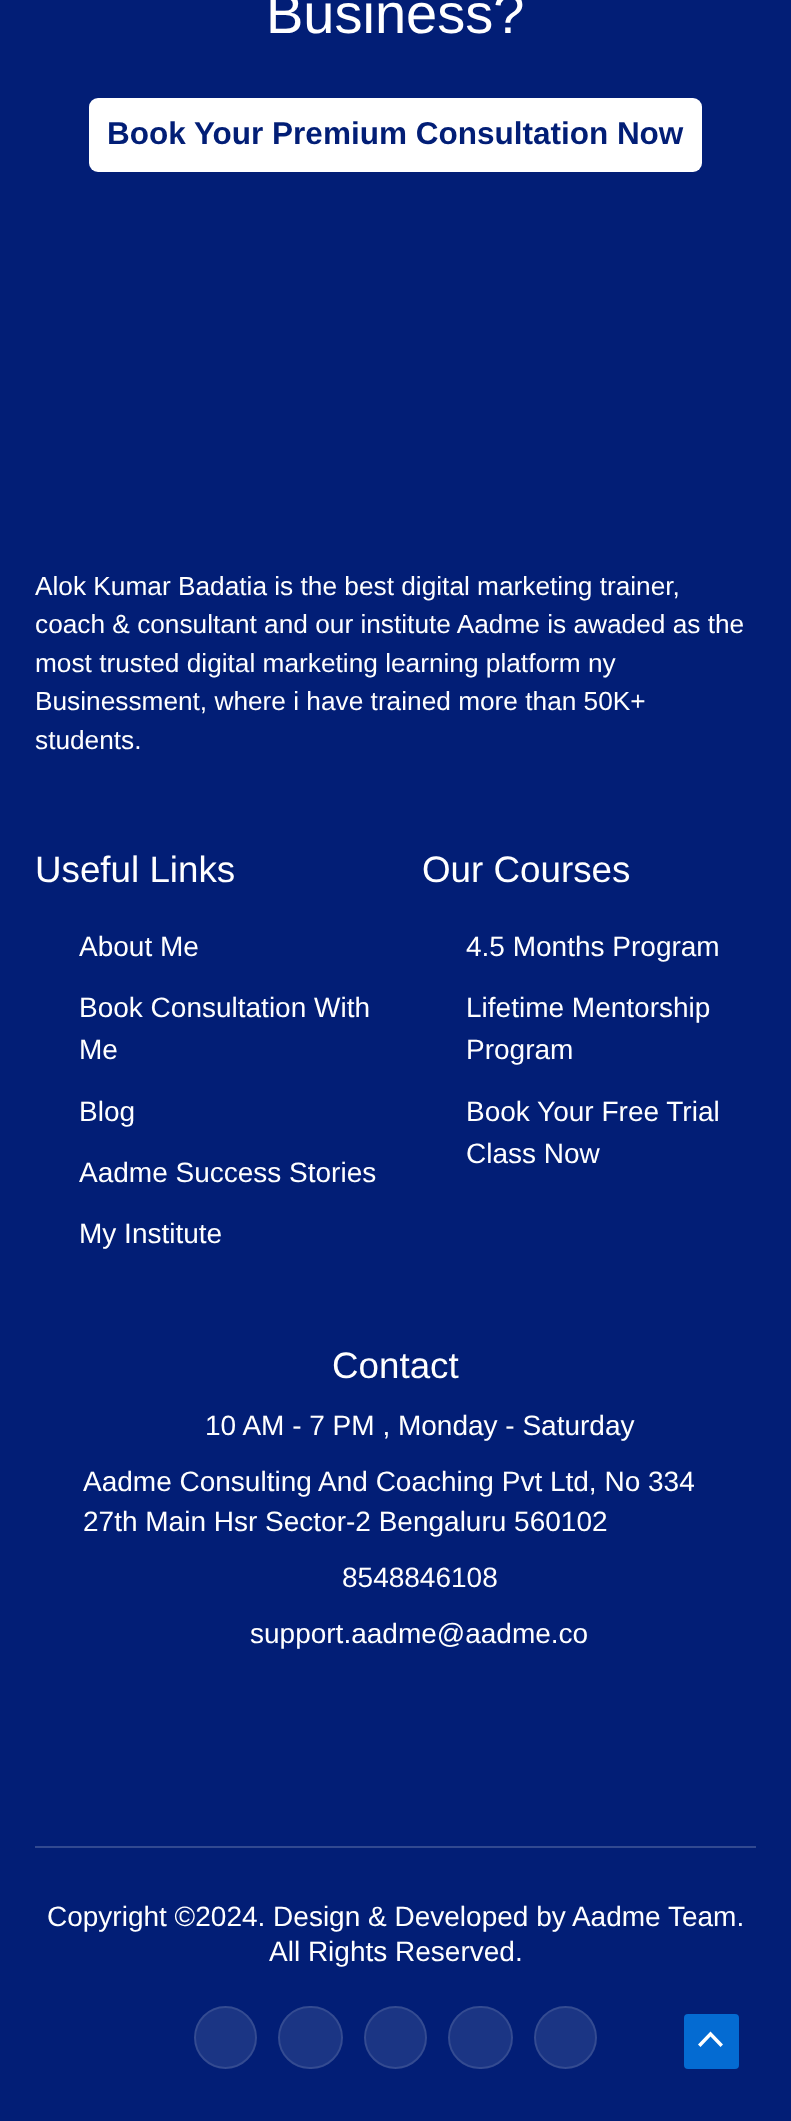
(async () => {
const canvas = document.querySelector("canvas")
canvas.width = 791
canvas.height = 2121
const c = canvas.getContext("2d")
c.miterLimit = 4
c.fontKerning = "normal"
function T(s,x,y){c.fillText(s,x,y)}
function R(x,y,w,h){c.fillRect(x,y,w,h)}
function Q(x,y,w,h,r){c.beginPath();c.roundRect(x,y,w,h,r);c.fill()}
let path
c.fillStyle="#021e76"
R(0,0,791,2121)
c.font="56px Liberation Sans"
c.fillStyle="#fff"
T("Business?",266,33)
Q(89,98,613,74,9)
c.font="bold 31.5px Liberation Sans"
c.fillStyle="#021e76"
T("Book Your Premium Consultation Now",107,144)
c.font="26.25px Liberation Sans"
c.fillStyle="#fff"
T("Alok Kumar Badatia is the best digital marketing trainer,",35,595)
T("coach & consultant and our institute Aadme is awaded as the",35,633)
T("most trusted digital marketing learning platform ny",35,672)
T("Businessment, where i have trained more than 50K+",35,710)
T("students.",35,749)
c.font="36.75px Liberation Sans"
T("Useful Links",35,882)
c.font="28px Liberation Sans"
T("About Me",79,956)
T("Book Consultation With",79,1017)
T("Me",79,1059)
T("Blog",79,1121)
T("Aadme Success Stories",79,1182)
T("My Institute",79,1243)
c.font="36.75px Liberation Sans"
T("Our Courses",422,882)
c.font="28px Liberation Sans"
T("4.5 Months Program",466,956)
T("Lifetime Mentorship",466,1017)
T("Program",466,1059)
T("Book Your Free Trial",466,1121)
T("Class Now",466,1163)
c.font="36.75px Liberation Sans"
T("Contact",332,1378)
c.font="28px Liberation Sans"
T("10 AM - 7 PM , Monday - Saturday",205,1435)
T("Aadme Consulting And Coaching Pvt Ltd, No 334",83,1491)
T("27th Main Hsr Sector-2 Bengaluru 560102",83,1531)
T("8548846108",342,1587)
T("support.aadme@aadme.co",250,1643)
c.fillStyle="#324990"
R(35,1846,721,2)
c.fillStyle="#fff"
T("Copyright ©2024. Design & Developed by Aadme Team.",47,1926)
T("All Rights Reserved.",269,1961)
c.fillStyle="#1b3584"
c.beginPath()
c.arc(225.5,2037.5,31.5,0,7)
c.fill()
c.beginPath()
c.arc(225.5,2037.5,30.5,0,7)
c.strokeStyle="#ffffff1c"
c.lineWidth=2
c.stroke()
Q(278,2006,65,63,31.5)
c.beginPath()
c.roundRect(279,2007,63,61,30.5)
c.stroke()
c.beginPath()
c.arc(395.5,2037.5,31.5,0,7)
c.fill()
c.beginPath()
c.arc(395.5,2037.5,30.5,0,7)
c.stroke()
Q(448,2006,65,63,31.5)
c.beginPath()
c.roundRect(449,2007,63,61,30.5)
c.stroke()
c.beginPath()
c.arc(565.5,2037.5,31.5,0,7)
c.fill()
c.beginPath()
c.arc(565.5,2037.5,30.5,0,7)
c.stroke()
c.fillStyle="#046bd2"
Q(684,2014,55,55,4)
c.fillStyle="#fff"
path = new Path2D("M723 2044.5l-12.5-13l-12.5 13l2.5 2.5l10-10.5l10 10.5z")
c.fill(path)
})()
